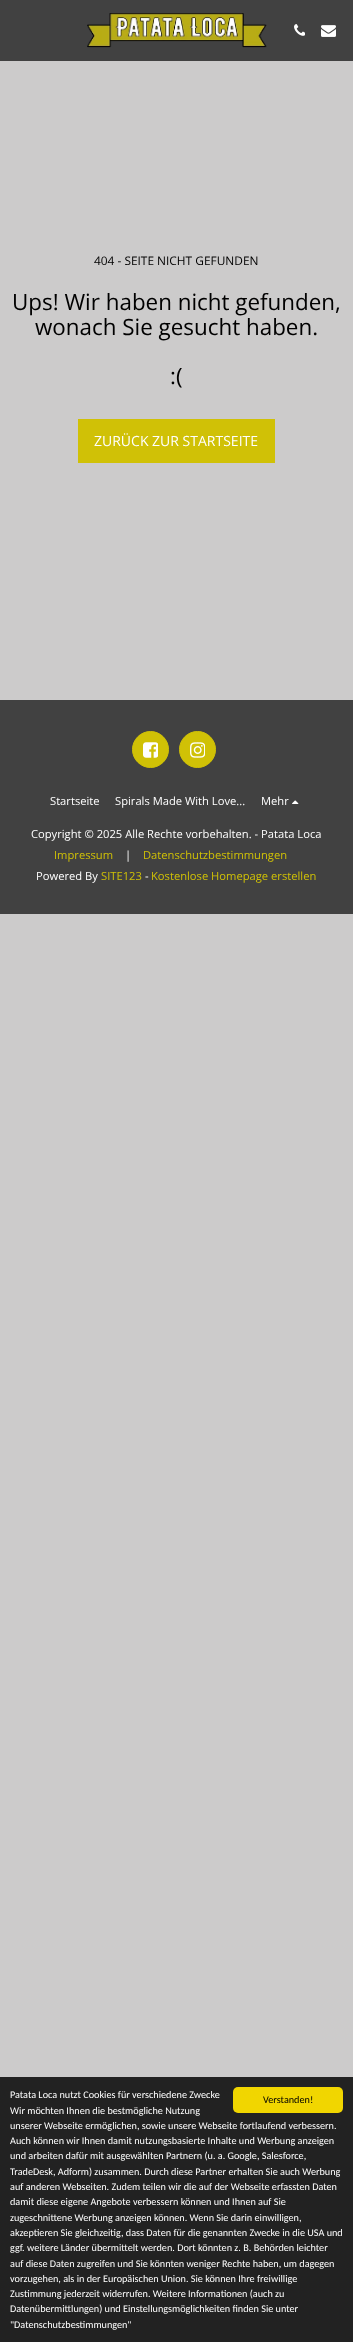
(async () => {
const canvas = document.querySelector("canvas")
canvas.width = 353
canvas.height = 2342
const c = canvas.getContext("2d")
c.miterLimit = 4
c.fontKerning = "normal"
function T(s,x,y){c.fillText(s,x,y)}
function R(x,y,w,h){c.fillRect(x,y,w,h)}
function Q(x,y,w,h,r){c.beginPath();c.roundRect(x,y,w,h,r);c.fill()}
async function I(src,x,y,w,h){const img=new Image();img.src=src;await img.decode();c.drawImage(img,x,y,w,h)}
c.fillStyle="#cccbcb"
R(0,0,353,2342)
c.fillStyle="#414141"
R(0,0,353,61)
await I("1.png",87,13,180,35)
await I("2.png",294,24,11,12)
await I("3.png",321,25,15,12)
c.font="11.9px Open Sans"
c.fillStyle="#000"
T("404 - SEITE NICHT GEFUNDEN",94,265)
c.font="22.4px Open Sans"
T("Ups! Wir haben nicht gefunden,",12,310)
T("wonach Sie gesucht haben.",35,335)
T(":(",170,384)
c.fillStyle="#d0c106"
R(78,419,197,44)
c.font="14px Open Sans"
c.fillStyle="#fff"
T("ZURÜCK ZUR STARTSEITE",94,446)
c.fillStyle="#414141"
R(0,700,353,214)
c.fillStyle="#d0c106"
c.beginPath()
c.arc(150.5,749.5,18,0,7)
c.fill()
c.strokeStyle="#d0c106"
c.stroke()
await I("4.png",143,742,15,16)
c.beginPath()
c.arc(197.5,749.5,18,0,7)
c.fill()
c.stroke()
await I("5.png",190,742,15,16)
c.font="11.2px Open Sans"
c.fillStyle="#fff"
T("Startseite",50,805)
T("Spirals Made With Love...",115,805)
T("Mehr",261,805)
await I("6.png",292,800,7,4)
T("Copyright © 2025 Alle Rechte vorbehalten. - Patata Loca",31,838)
c.fillStyle="#d0c106"
T("Impressum",54,859)
c.fillStyle="#fff"
T("|",125,859)
c.fillStyle="#d0c106"
T("Datenschutzbestimmungen",143,859)
c.fillStyle="#fff"
T("Powered By",36,880)
c.fillStyle="#d0c106"
T("SITE123",101,880)
c.fillStyle="#fff"
T("-",145,880)
c.fillStyle="#d0c106"
T("Kostenlose Homepage erstellen",151,880)
c.fillStyle="#222"
R(0,2077,353,265)
c.font="10.2px Carlito"
c.fillStyle="#fff"
T("Patata Loca nutzt Cookies für verschiedene Zwecke",10,2098)
T("Wir möchten Ihnen die bestmögliche Nutzung",10,2114)
T("unserer Webseite ermöglichen, sowie unsere Webseite fortlaufend verbessern.",10,2129)
T("Auch können wir Ihnen damit nutzungsbasierte Inhalte und Werbung anzeigen",10,2144)
T("und arbeiten dafür mit ausgewählten Partnern (u. a. Google, Salesforce,",10,2159)
T("TradeDesk, Adform) zusammen. Durch diese Partner erhalten Sie auch Werbung",10,2175)
T("auf anderen Webseiten. Zudem teilen wir die auf der Webseite erfassten Daten",10,2190)
T("damit diese eigene Angebote verbessern können und Ihnen auf Sie",10,2205)
T("zugeschnittene Werbung anzeigen können. Wenn Sie darin einwilligen,",10,2221)
T("akzeptieren Sie gleichzeitig, dass Daten für die genannten Zwecke in die USA und",10,2236)
T("ggf. weitere Länder übermittelt werden. Dort könnten z. B. Behörden leichter",10,2251)
T("auf diese Daten zugreifen und Sie könnten weniger Rechte haben, um dagegen",10,2267)
T("vorzugehen, als in der Europäischen Union. Sie können Ihre freiwillige",10,2282)
T("Zustimmung jederzeit widerrufen. Weitere Informationen (auch zu",10,2297)
T("Datenübermittlungen) und Einstellungsmöglichkeiten finden Sie unter",10,2312)
T("\"Datenschutzbestimmungen\"",10,2328)
c.fillStyle="#f1d600"
Q(233,2087,110,26,5)
c.fillStyle="#000"
T("Verstanden!",263,2103)
})()
